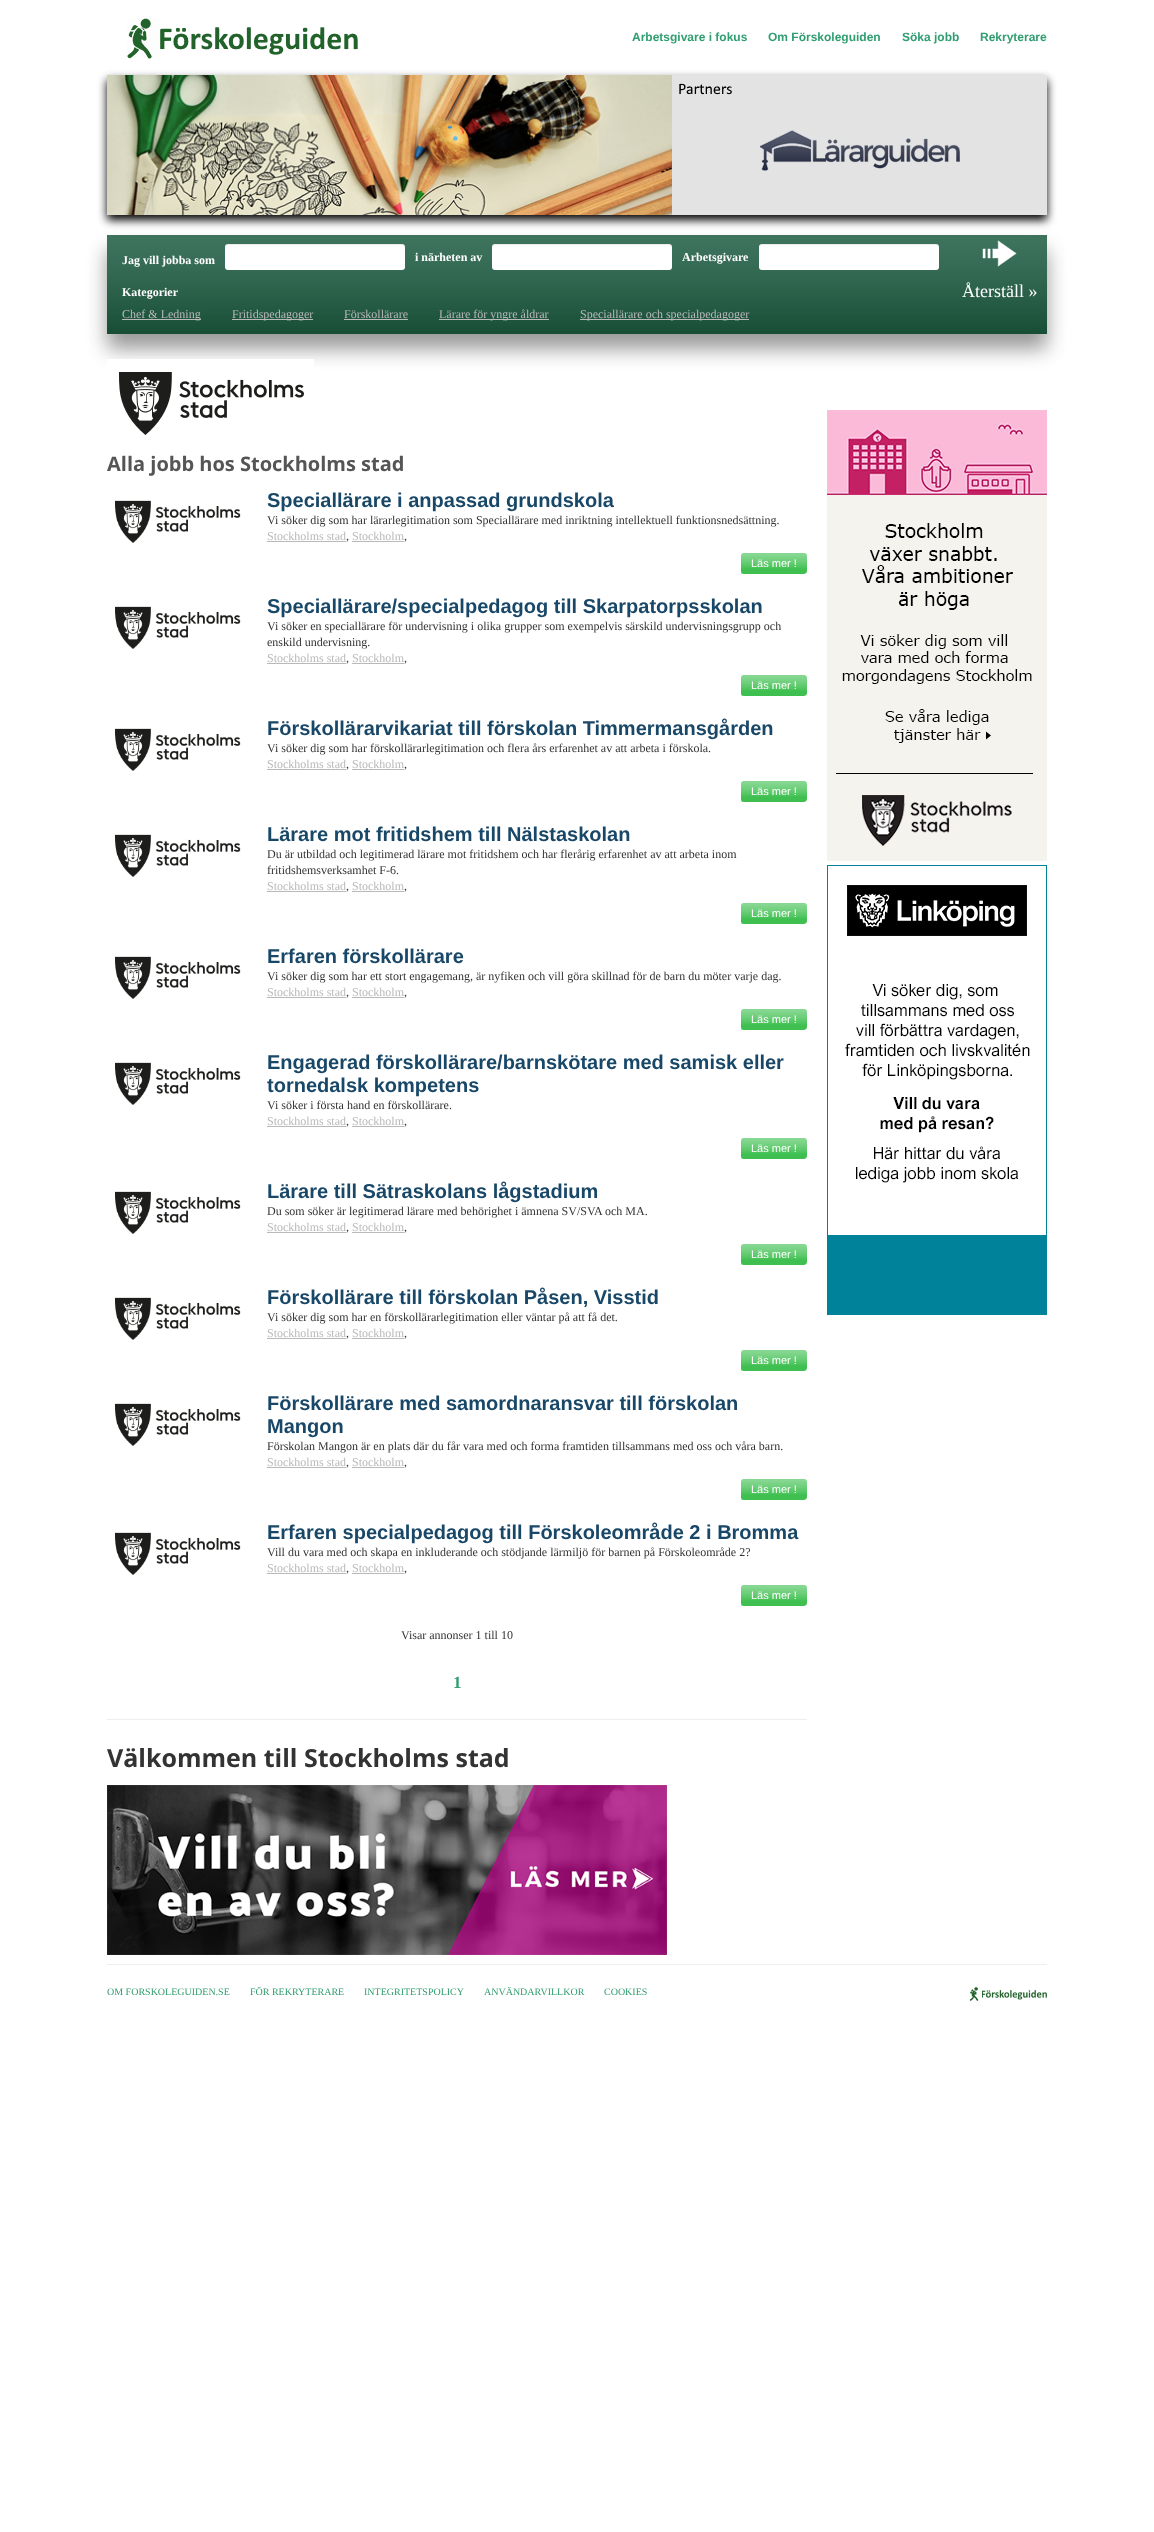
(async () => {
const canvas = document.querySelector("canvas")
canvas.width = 1154
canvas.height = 2532
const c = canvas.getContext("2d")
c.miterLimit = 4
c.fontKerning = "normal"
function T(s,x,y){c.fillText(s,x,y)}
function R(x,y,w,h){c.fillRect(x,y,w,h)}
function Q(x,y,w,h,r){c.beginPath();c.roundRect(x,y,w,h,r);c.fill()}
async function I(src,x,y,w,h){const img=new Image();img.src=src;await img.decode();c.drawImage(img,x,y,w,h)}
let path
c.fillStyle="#fff"
R(0,0,1154,2532)
await I("1.png",127,18,231,41)
c.font="bold 12px Liberation Sans"
c.fillStyle="#319e71"
T("Arbetsgivare i fokus",632,41)
T("Om Förskoleguiden",768,41)
T("Söka jobb",902,41)
T("Rekryterare",980,41)
c.fillStyle="#000"
c.filter="blur(5px)"
c.beginPath()
c.rect(107,80,940,140)
c.fill()
c.filter="none"
await I("2.png",107,75,565,140)
await I("3.png",672,75,375,140)
await I("4.png",760,130,200,41)
c.fillStyle="#999"
c.filter="blur(10px)"
c.beginPath()
c.rect(107,250,940,99)
c.fill()
c.filter="none"
await I("5.png",107,235,940,99)
c.font="bold 12px Liberation Serif"
c.fillStyle="#fff"
T("Jag vill jobba som",122,264)
Q(225,244,180,26,3)
c.fillStyle="#00000012"
path = new Path2D("M228 245h175l1 1l1 2v-1c0-2-1-3-3-3h-174c-2 0-3 1-3 3v1c0-2 1-3 3-3z")
c.fill(path)
c.fillStyle="#fff"
T("i närheten av",415,261)
Q(492,244,180,26,3)
c.fillStyle="#00000012"
path = new Path2D("M495 245h175l1 1l1 2v-1c0-2-1-3-3-3h-174c-2 0-3 1-3 3v1c0-2 1-3 3-3z")
c.fill(path)
c.fillStyle="#fff"
T("Arbetsgivare",682,261)
Q(759,244,180,26,3)
c.fillStyle="#00000012"
path = new Path2D("M762 245h175l1 1l1 2v-1c0-2-1-3-3-3h-174c-2 0-3 1-3 3v1c0-2 1-3 3-3z")
c.fill(path)
await I("6.png",982,240,35,27)
c.font="18px Liberation Serif"
c.fillStyle="#fff"
T("Återställ »",962,297)
c.font="bold 12px Liberation Serif"
T("Kategorier",122,296)
c.fillStyle="#b9b9b9"
R(122,319,79,1)
c.font="12px Liberation Serif"
T("Chef & Ledning",122,318)
R(232,319,81,1)
T("Fritidspedagoger",232,318)
T("Förskollärare",344,318)
R(344,319,64,1)
R(439,319,110,1)
T("Lärare för yngre åldrar",439,318)
R(580,319,169,1)
T("Speciallärare och specialpedagoger",580,318)
await I("7.png",107,359,207,76)
c.font="bold 20px Open Sans"
c.fillStyle="#555"
T("Alla jobb hos Stockholms stad",107,471)
await I("8.png",115,500,126,43)
c.font="bold 20px Liberation Sans"
c.fillStyle="#184768"
T("Speciallärare i anpassad grundskola",267,507)
c.font="12px Liberation Serif"
c.fillStyle="#333"
T("Vi söker dig som har lärarlegitimation som Speciallärare med inriktning intellektuell funktionsnedsättning.",267,524)
c.fillStyle="#b9b9b9"
T("Stockholms stad",267,540)
R(267,541,79,1)
c.fillStyle="#333"
T(",",346,540)
c.fillStyle="#b9b9b9"
T("Stockholm",352,540)
R(352,541,52,1)
c.fillStyle="#333"
T(",",404,540)
await I("9.png",744,553,63,21)
await I("10.png",741,553,3,21)
c.font="11px Liberation Sans"
c.fillStyle="#fff"
T("Läs mer !",751,567)
await I("11.png",115,606,126,43)
c.font="bold 20px Liberation Sans"
c.fillStyle="#184768"
T("Speciallärare/specialpedagog till Skarpatorpsskolan",267,613)
c.font="12px Liberation Serif"
c.fillStyle="#333"
T("Vi söker en speciallärare för undervisning i olika grupper som exempelvis särskild undervisningsgrupp och",267,630)
T("enskild undervisning.",267,646)
c.fillStyle="#b9b9b9"
T("Stockholms stad",267,662)
R(267,663,79,1)
c.fillStyle="#333"
T(",",346,662)
c.fillStyle="#b9b9b9"
T("Stockholm",352,662)
R(352,663,52,1)
c.fillStyle="#333"
T(",",404,662)
await I("9.png",744,675,63,21)
await I("10.png",741,675,3,21)
c.font="11px Liberation Sans"
c.fillStyle="#fff"
T("Läs mer !",751,689)
await I("8.png",115,728,126,43)
c.font="bold 20px Liberation Sans"
c.fillStyle="#184768"
T("Förskollärarvikariat till förskolan Timmermansgården",267,735)
c.font="12px Liberation Serif"
c.fillStyle="#333"
T("Vi söker dig som har förskollärarlegitimation och flera års erfarenhet av att arbeta i förskola.",267,752)
c.fillStyle="#b9b9b9"
T("Stockholms stad",267,768)
R(267,769,79,1)
c.fillStyle="#333"
T(",",346,768)
c.fillStyle="#b9b9b9"
T("Stockholm",352,768)
R(352,769,52,1)
c.fillStyle="#333"
T(",",404,768)
await I("9.png",744,781,63,21)
await I("10.png",741,781,3,21)
c.font="11px Liberation Sans"
c.fillStyle="#fff"
T("Läs mer !",751,795)
await I("11.png",115,834,126,43)
c.font="bold 20px Liberation Sans"
c.fillStyle="#184768"
T("Lärare mot fritidshem till Nälstaskolan",267,841)
c.font="12px Liberation Serif"
c.fillStyle="#333"
T("Du är utbildad och legitimerad lärare mot fritidshem och har flerårig erfarenhet av att arbeta inom",267,858)
T("fritidshemsverksamhet F-6.",267,874)
c.fillStyle="#b9b9b9"
T("Stockholms stad",267,890)
R(267,891,79,1)
c.fillStyle="#333"
T(",",346,890)
c.fillStyle="#b9b9b9"
T("Stockholm",352,890)
R(352,891,52,1)
c.fillStyle="#333"
T(",",404,890)
await I("9.png",744,903,63,21)
await I("10.png",741,903,3,21)
c.font="11px Liberation Sans"
c.fillStyle="#fff"
T("Läs mer !",751,917)
await I("8.png",115,956,126,43)
c.font="bold 20px Liberation Sans"
c.fillStyle="#184768"
T("Erfaren förskollärare",267,963)
c.font="12px Liberation Serif"
c.fillStyle="#333"
T("Vi söker dig som har ett stort engagemang, är nyfiken och vill göra skillnad för de barn du möter varje dag.",267,980)
c.fillStyle="#b9b9b9"
T("Stockholms stad",267,996)
R(267,997,79,1)
c.fillStyle="#333"
T(",",346,996)
c.fillStyle="#b9b9b9"
T("Stockholm",352,996)
R(352,997,52,1)
c.fillStyle="#333"
T(",",404,996)
await I("9.png",744,1009,63,21)
await I("10.png",741,1009,3,21)
c.font="11px Liberation Sans"
c.fillStyle="#fff"
T("Läs mer !",751,1023)
await I("8.png",115,1062,126,43)
c.font="bold 20px Liberation Sans"
c.fillStyle="#184768"
T("Engagerad förskollärare/barnskötare med samisk eller",267,1069)
T("tornedalsk kompetens",267,1092)
c.font="12px Liberation Serif"
c.fillStyle="#333"
T("Vi söker i första hand en förskollärare.",267,1109)
c.fillStyle="#b9b9b9"
T("Stockholms stad",267,1125)
R(267,1126,79,1)
c.fillStyle="#333"
T(",",346,1125)
c.fillStyle="#b9b9b9"
T("Stockholm",352,1125)
R(352,1126,52,1)
c.fillStyle="#333"
T(",",404,1125)
await I("9.png",744,1138,63,21)
await I("10.png",741,1138,3,21)
c.font="11px Liberation Sans"
c.fillStyle="#fff"
T("Läs mer !",751,1152)
await I("11.png",115,1191,126,43)
c.font="bold 20px Liberation Sans"
c.fillStyle="#184768"
T("Lärare till Sätraskolans lågstadium",267,1198)
c.font="12px Liberation Serif"
c.fillStyle="#333"
T("Du som söker är legitimerad lärare med behörighet i ämnena SV/SVA och MA.",267,1215)
c.fillStyle="#b9b9b9"
T("Stockholms stad",267,1231)
R(267,1232,79,1)
c.fillStyle="#333"
T(",",346,1231)
c.fillStyle="#b9b9b9"
T("Stockholm",352,1231)
R(352,1232,52,1)
c.fillStyle="#333"
T(",",404,1231)
await I("9.png",744,1244,63,21)
await I("10.png",741,1244,3,21)
c.font="11px Liberation Sans"
c.fillStyle="#fff"
T("Läs mer !",751,1258)
await I("11.png",115,1297,126,43)
c.font="bold 20px Liberation Sans"
c.fillStyle="#184768"
T("Förskollärare till förskolan Påsen, Visstid",267,1304)
c.font="12px Liberation Serif"
c.fillStyle="#333"
T("Vi söker dig som har en förskollärarlegitimation eller väntar på att få det.",267,1321)
c.fillStyle="#b9b9b9"
T("Stockholms stad",267,1337)
R(267,1338,79,1)
c.fillStyle="#333"
T(",",346,1337)
c.fillStyle="#b9b9b9"
T("Stockholm",352,1337)
R(352,1338,52,1)
c.fillStyle="#333"
T(",",404,1337)
await I("9.png",744,1350,63,21)
await I("10.png",741,1350,3,21)
c.font="11px Liberation Sans"
c.fillStyle="#fff"
T("Läs mer !",751,1364)
await I("11.png",115,1403,126,43)
c.font="bold 20px Liberation Sans"
c.fillStyle="#184768"
T("Förskollärare med samordnaransvar till förskolan",267,1410)
T("Mangon",267,1433)
c.font="12px Liberation Serif"
c.fillStyle="#333"
T("Förskolan Mangon är en plats där du får vara med och forma framtiden tillsammans med oss och våra barn.",267,1450)
c.fillStyle="#b9b9b9"
T("Stockholms stad",267,1466)
R(267,1467,79,1)
c.fillStyle="#333"
T(",",346,1466)
c.fillStyle="#b9b9b9"
T("Stockholm",352,1466)
R(352,1467,52,1)
c.fillStyle="#333"
T(",",404,1466)
await I("9.png",744,1479,63,21)
await I("10.png",741,1479,3,21)
c.font="11px Liberation Sans"
c.fillStyle="#fff"
T("Läs mer !",751,1493)
await I("11.png",115,1532,126,43)
c.font="bold 20px Liberation Sans"
c.fillStyle="#184768"
T("Erfaren specialpedagog till Förskoleområde 2 i Bromma",267,1539)
c.font="12px Liberation Serif"
c.fillStyle="#333"
T("Vill du vara med och skapa en inkluderande och stödjande lärmiljö för barnen på Förskoleområde 2?",267,1556)
c.fillStyle="#b9b9b9"
T("Stockholms stad",267,1572)
R(267,1573,79,1)
c.fillStyle="#333"
T(",",346,1572)
c.fillStyle="#b9b9b9"
T("Stockholm",352,1572)
R(352,1573,52,1)
c.fillStyle="#333"
T(",",404,1572)
await I("9.png",744,1585,63,21)
await I("10.png",741,1585,3,21)
c.font="11px Liberation Sans"
c.fillStyle="#fff"
T("Läs mer !",751,1599)
c.font="12px Liberation Serif"
c.fillStyle="#333"
T("Visar annonser 1 till 10",401,1639)
c.font="bold 17px Liberation Serif"
c.fillStyle="#319e71"
T("1",453,1688)
c.fillStyle="#eee"
R(107,1719,700,1)
c.font="bold 25px Open Sans"
c.fillStyle="#333"
T("Välkommen till Stockholms stad",107,1767)
await I("12.png",107,1785,560,170)
await I("13.png",827,410,220,451)
await I("14.png",827,865,220,450)
c.fillStyle="#eee"
R(107,1964,940,1)
c.font="10px Liberation Serif"
c.fillStyle="#319e71"
T("OM FORSKOLEGUIDEN.SE",107,1995)
T("FÖR REKRYTERARE",250,1995)
T("INTEGRITETSPOLICY",364,1995)
T("ANVÄNDARVILLKOR",484,1995)
T("COOKIES",604,1995)
await I("15.png",969,1987,78,14)
})()
